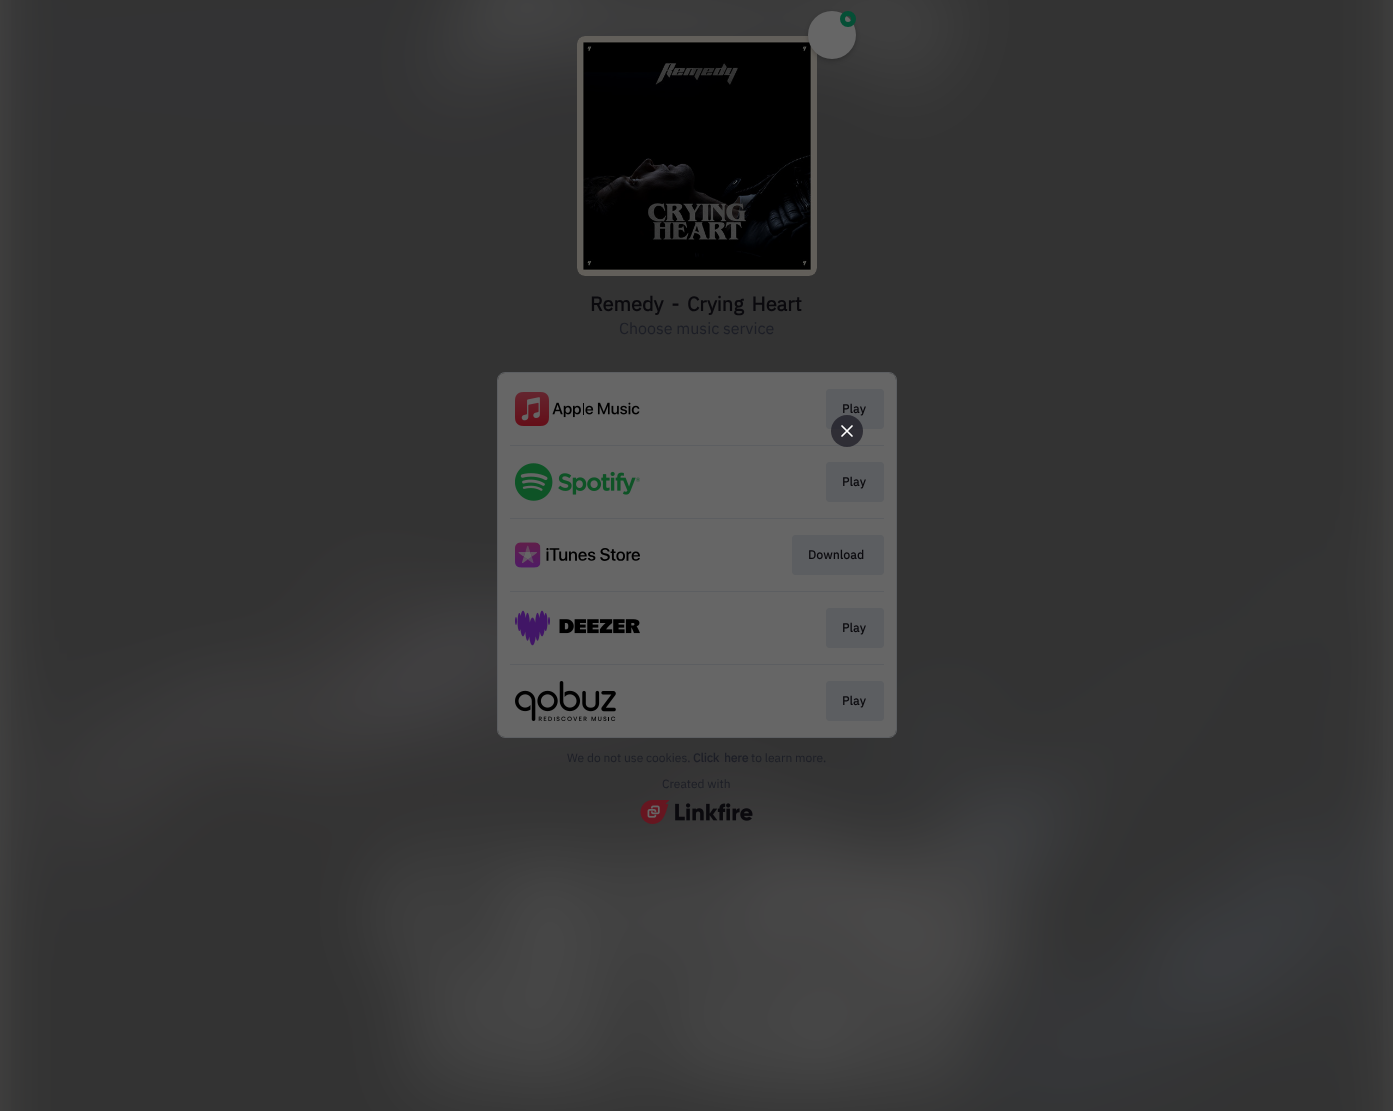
(async () => {
const canvas = document.querySelector("canvas")
canvas.width = 1393
canvas.height = 1111
const c = canvas.getContext("2d")
c.miterLimit = 4
c.fontKerning = "normal"
function T(s,x,y){c.fillText(s,x,y)}
function R(x,y,w,h){c.fillRect(x,y,w,h)}
function Q(x,y,w,h,r){c.beginPath();c.roundRect(x,y,w,h,r);c.fill()}
async function I(src,x,y,w,h){const img=new Image();img.src=src;await img.decode();c.drawImage(img,x,y,w,h)}
let path
c.fillStyle="#666"
R(0,0,1393,1111)
await I("1.png",0,0,1393,1111)
await I("2.png",577,36,240,240)
c.fillStyle="#00000033"
c.filter="blur(2px)"
c.beginPath()
c.roundRect(808,13,48,48,24)
c.fill()
c.filter="none"
c.fillStyle="#666"
c.beginPath()
c.arc(832,35,24,0,7)
c.fill()
c.beginPath()
c.arc(848,19,5.5,0,7)
c.strokeStyle="#054f36"
c.lineWidth=5
c.stroke()
c.beginPath()
c.roundRect(497.5,372.5,399,365,7.5)
c.strokeStyle="#5c5e61"
c.lineWidth=1
c.stroke()
Q(498,373,398,364,7)
c.fillStyle="#5c5e61"
Q(826,389,58,40,4)
c.letterSpacing="0.25px"
c.font="bold 12px IBM Plex Sans"
c.fillStyle="#0a090d"
T("Play",842,413)
c.fillStyle="#5c5e61"
R(510,445,374,1)
c.fillStyle="#181721b3"
c.beginPath()
c.arc(847,431,16,0,7)
c.fill()
path = new Path2D("M842 426l10 10m-10 0l10-10")
c.strokeStyle="#fff"
c.lineWidth=1.7
c.lineCap="round"
c.lineJoin="round"
c.stroke(path)
c.letterSpacing="0px"
c.wordSpacing="3px"
c.font="bold 20px IBM Plex Sans"
c.fillStyle="#0a090d"
T("Remedy - Crying Heart",590,311)
c.wordSpacing="0px"
c.font="16px IBM Plex Sans"
c.fillStyle="#1c1e26"
T("Choose music service",619,334)
await I("3.png",515,392,125,34)
await I("4.png",515,463,125,38)
c.fillStyle="#5c5e61"
Q(826,462,58,40,4)
c.letterSpacing="0.25px"
c.font="bold 12px IBM Plex Sans"
c.fillStyle="#0a090d"
T("Play",842,486)
c.fillStyle="#5c5e61"
R(510,518,374,1)
await I("5.png",515,542,125,26)
Q(792,535,92,40,4)
c.fillStyle="#0a090d"
T("Download",808,559)
c.fillStyle="#5c5e61"
R(510,591,374,1)
await I("6.png",515,610,125,36)
Q(826,608,58,40,4)
c.fillStyle="#0a090d"
T("Play",842,632)
c.fillStyle="#5c5e61"
R(510,664,374,1)
await I("7.png",515,681,101,40)
Q(826,681,58,40,4)
c.fillStyle="#0a090d"
T("Play",842,705)
c.letterSpacing="0px"
c.font="12px IBM Plex Sans"
c.fillStyle="#1c1e26"
T("We do not use cookies.",567,762)
c.wordSpacing="2px"
c.font="bold 12px IBM Plex Sans"
T("Click here",693,762)
c.wordSpacing="0px"
c.font="12px IBM Plex Sans"
T("to learn more.",751,762)
T("Created with",662,788)
await I("8.png",640,800,113,24)
})()
